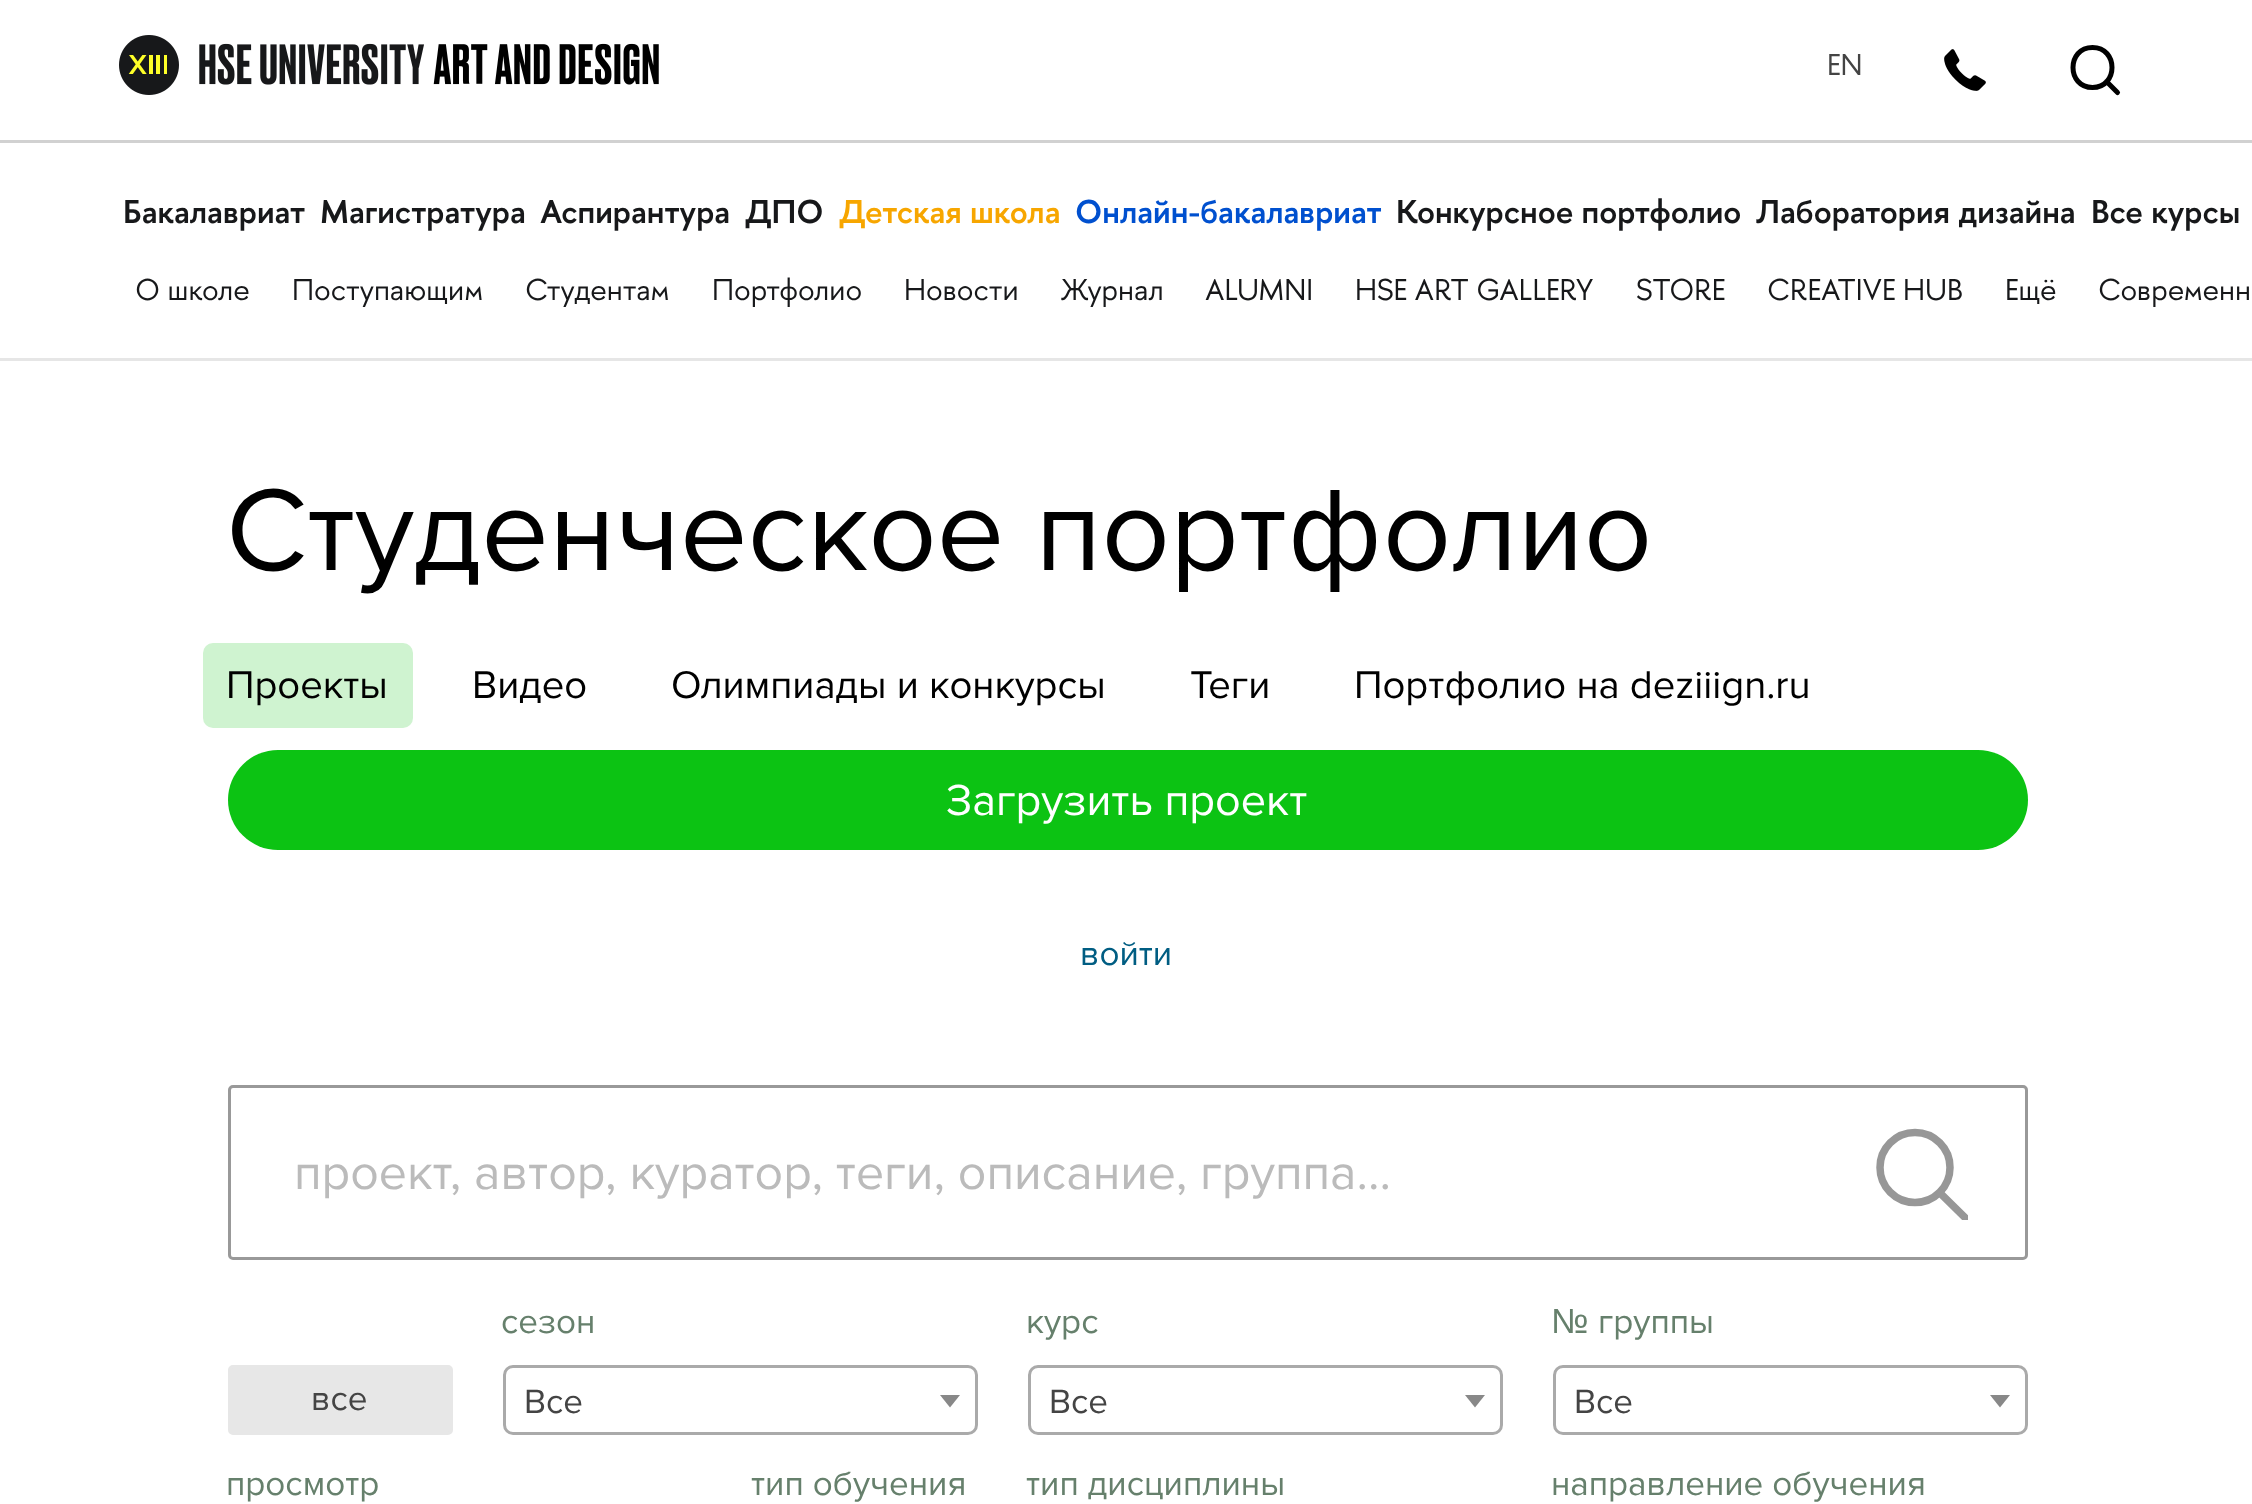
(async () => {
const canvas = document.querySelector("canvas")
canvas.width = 2252
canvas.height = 1504
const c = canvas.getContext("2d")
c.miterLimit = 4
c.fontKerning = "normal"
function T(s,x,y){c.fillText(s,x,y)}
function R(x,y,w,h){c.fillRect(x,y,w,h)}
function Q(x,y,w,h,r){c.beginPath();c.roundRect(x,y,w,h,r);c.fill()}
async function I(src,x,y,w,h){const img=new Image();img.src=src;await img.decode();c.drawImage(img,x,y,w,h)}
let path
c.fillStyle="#fff"
R(0,0,2252,1504)
c.fillStyle="#d1d1d1"
R(0,140,2252,3)
await I("1.png",119,35,540,60)
c.font="30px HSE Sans"
c.fillStyle="#444"
T("EN",1827,75)
await I("2.png",1944,49,42,42)
path = new Path2D("M2092.5 47.5c-26 0-26 40 0 40c26 0 26-40 0-40zm25 45l-11-11")
c.strokeStyle="#000"
c.lineWidth=5
c.lineCap="round"
c.lineJoin="round"
c.stroke(path)
c.fillStyle="#e6e6e6"
R(0,358,2252,3)
c.font="600 33px HSE Sans"
c.fillStyle="#17181a"
T("Бакалавриат",123,223)
T("Магистратура",320,223)
T("Аспирантура",540,223)
T("ДПО",745,223)
c.fillStyle="#f7a600"
T("Детская школа",839,223)
c.fillStyle="#0050cf"
T("Онлайн-бакалавриат",1075,223)
c.fillStyle="#17181a"
T("Конкурсное портфолио",1396,223)
T("Лаборатория дизайна",1756,223)
T("Все курсы",2091,223)
c.font="30px HSE Sans"
T("О школе",135,300)
T("Поступающим",292,300)
T("Студентам",525,300)
T("Портфолио",712,300)
T("Новости",904,300)
T("Журнал",1061,300)
T("ALUMNI",1205,300)
T("HSE ART GALLERY",1355,300)
T("STORE",1636,300)
T("CREATIVE HUB",1767,300)
T("Ещё",2005,300)
T("Современн",2098,300)
c.font="120px Proxima Nova"
c.fillStyle="#000"
T("Студенческое портфолио",226,570)
c.fillStyle="#cff3d0"
Q(203,643,210,85,10)
c.font="40px Proxima Nova"
c.fillStyle="#000"
T("Проекты",226,698)
T("Видео",472,698)
T("Олимпиады и конкурсы",671,698)
T("Теги",1190,698)
T("Портфолио на deziiign.ru",1354,698)
c.fillStyle="#0cc313"
Q(228,750,1800,100,50)
c.font="45px Proxima Nova"
c.fillStyle="#fff"
T("Загрузить проект",946,815)
c.font="35px Proxima Nova"
c.fillStyle="#005d82"
T("войти",1080,965)
c.beginPath()
c.roundRect(229.5,1086.5,1797,172,3.5)
c.strokeStyle="#999"
c.lineWidth=3
c.lineJoin="miter"
c.stroke()
c.font="50px Proxima Nova"
c.fillStyle="#bbb"
T("проект, автор, куратор, теги, описание, группа…",294,1189)
c.beginPath()
c.arc(1915,1167.5,35,0,7)
c.strokeStyle="#979797"
c.lineWidth=7.5
c.stroke()
c.save()
c.beginPath()
c.rect(1875,1128,93,92)
c.clip()
path = new Path2D("M1941 1194l29 28.5")
c.lineCap="square"
c.stroke(path)
c.restore()
c.fillStyle="#e7e7e7"
c.beginPath()
c.roundRect(229.5,1366.5,222,67,3.5)
c.fill()
c.strokeStyle="#e7e7e7"
c.lineWidth=3
c.stroke()
c.font="35px Proxima Nova"
c.fillStyle="#444"
T("все",311,1410)
c.fillStyle="#66806c"
T("сезон",501,1333)
c.beginPath()
c.roundRect(504.5,1366.5,472,67,8.5)
c.strokeStyle="#aaa"
c.stroke()
c.fillStyle="#444"
T("Все",524,1413)
c.fillStyle="#888"
path = new Path2D("M940 1395h20l-10 12.5z")
c.fill(path)
c.fillStyle="#66806c"
T("курс",1026,1333)
c.beginPath()
c.roundRect(1029.5,1366.5,472,67,8.5)
c.stroke()
c.fillStyle="#444"
T("Все",1049,1413)
c.fillStyle="#888"
path = new Path2D("M1465 1395h20l-10 12.5z")
c.fill(path)
c.font="35px Liberation Sans"
c.fillStyle="#66806c"
T("№",1551,1333)
c.font="35px Proxima Nova"
T("группы",1598,1333)
c.beginPath()
c.roundRect(1554.5,1366.5,472,67,8.5)
c.stroke()
c.fillStyle="#444"
T("Все",1574,1413)
c.fillStyle="#888"
path = new Path2D("M1990 1395h20l-10 12.5z")
c.fill(path)
c.fillStyle="#66806c"
T("просмотр",226,1495)
T("тип обучения",751,1495)
T("тип дисциплины",1026,1495)
T("направление обучения",1551,1495)
})()
